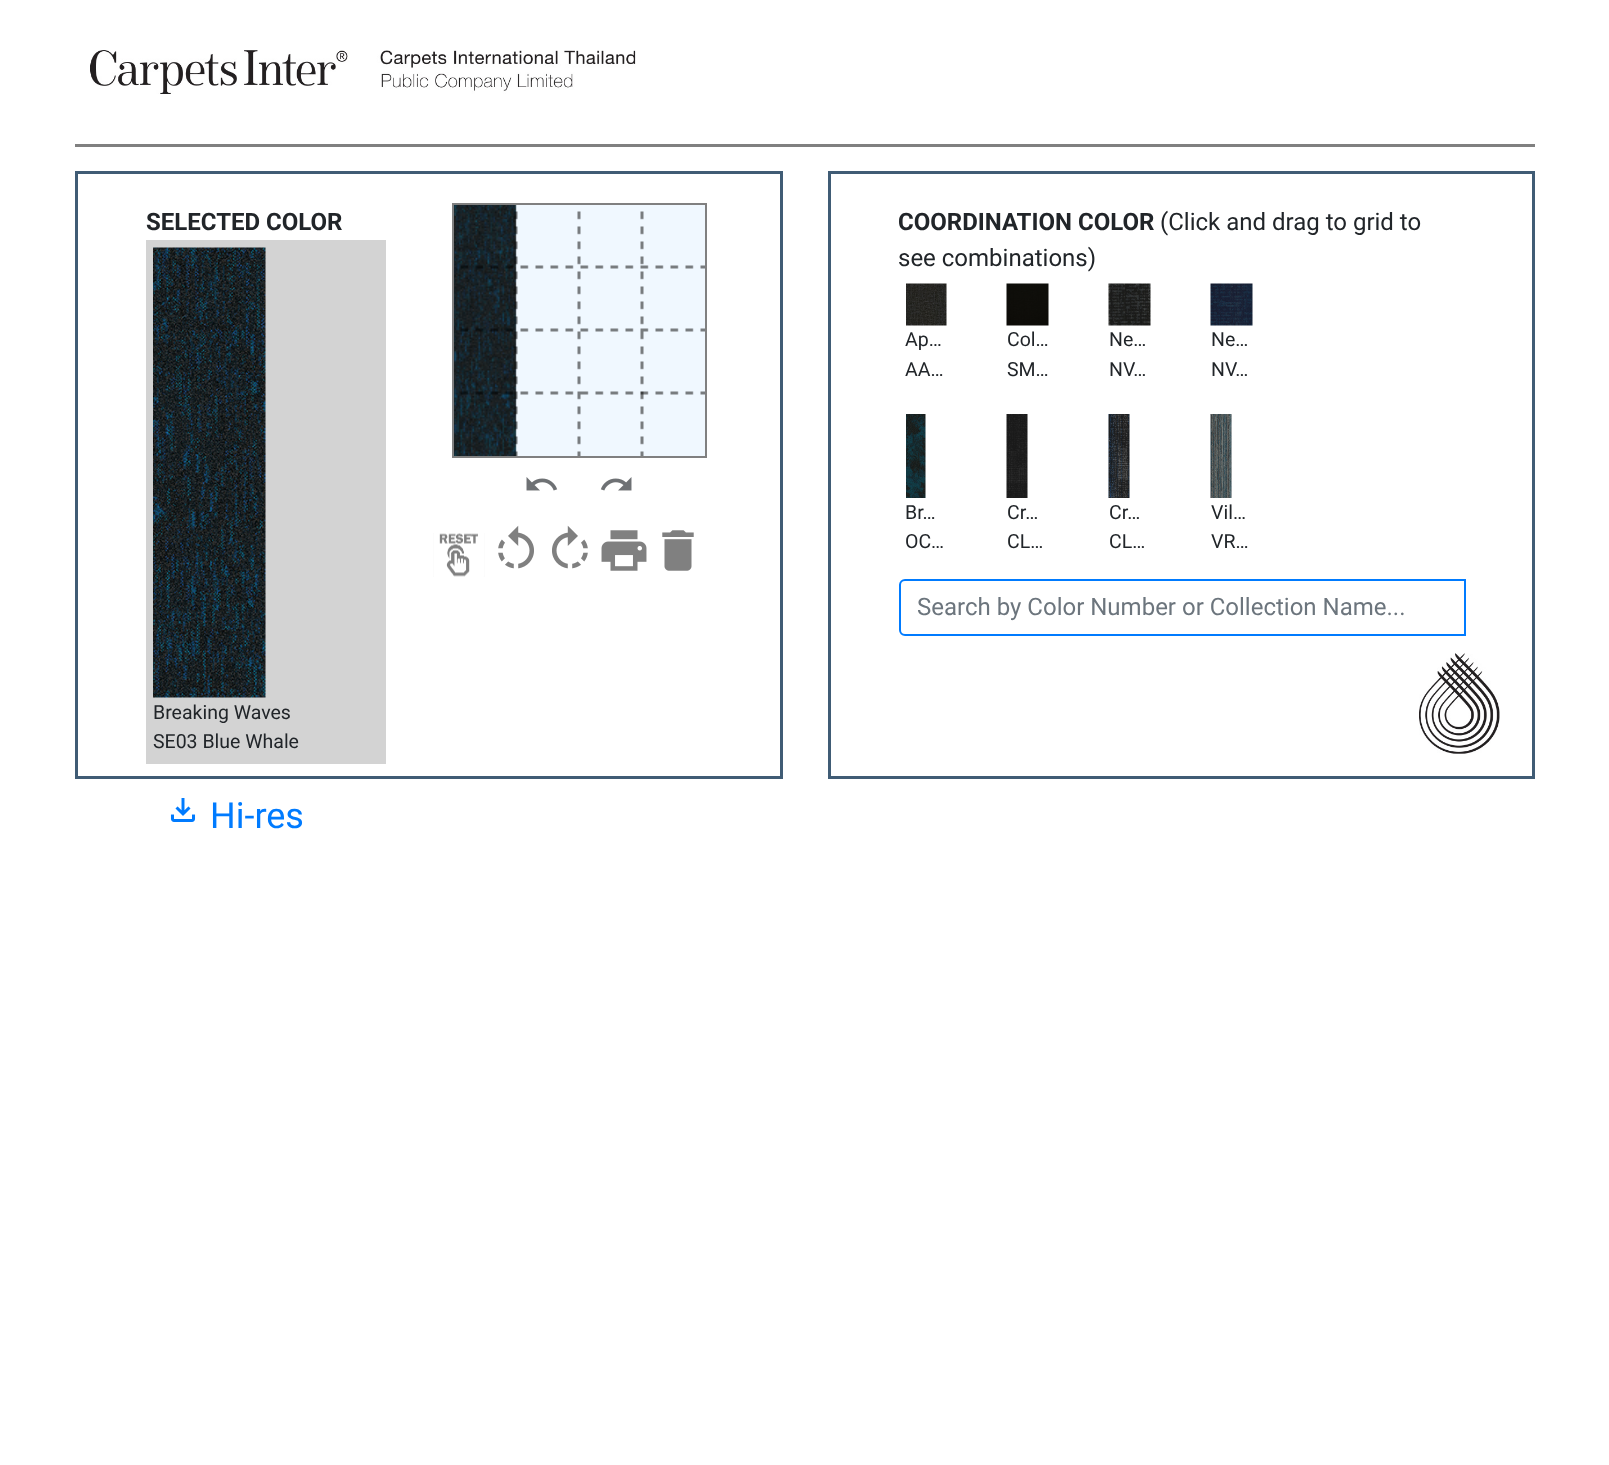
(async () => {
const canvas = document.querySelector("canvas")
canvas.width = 1609
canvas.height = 1465
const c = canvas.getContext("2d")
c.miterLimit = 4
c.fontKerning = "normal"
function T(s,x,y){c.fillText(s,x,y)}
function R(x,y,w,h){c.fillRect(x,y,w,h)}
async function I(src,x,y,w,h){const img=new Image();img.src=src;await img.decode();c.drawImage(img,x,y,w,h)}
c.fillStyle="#fff"
R(0,0,1609,1465)
await I("1.png",90,50,546,44)
c.fillStyle="#808080"
R(75,144,1460,3)
c.strokeStyle="#405c75"
c.lineWidth=3
c.strokeRect(76.5,172.5,705,605)
c.font="bold 24px Roboto"
c.fillStyle="#212529"
T("SELECTED COLOR",146,230)
c.fillStyle="#d3d3d3"
R(146,240,240,524)
await I("2.png",153,247,113,451)
c.font="19.5px Roboto"
c.fillStyle="#212529"
T("Breaking Waves",153,719)
T("SE03 Blue Whale",153,748)
await I("3.png",170,798,26,24)
c.font="36px Roboto"
c.fillStyle="#007bff"
T("Hi-res",210,828)
await I("4.png",454,205,251,251)
c.strokeStyle="#808080"
c.lineWidth=2
c.strokeRect(453,204,253,253)
await I("5.png",526,477,32,14)
await I("6.png",600,477,32,14)
await I("7.png",433,533,52,44)
await I("8.png",498,525,36,44)
await I("9.png",552,525,36,44)
await I("10.png",601,530,46,41)
await I("11.png",662,530,32,41)
c.strokeStyle="#405c75"
c.lineWidth=3
c.strokeRect(829.5,172.5,704,605)
c.font="bold 24px Roboto"
c.fillStyle="#212529"
T("COORDINATION COLOR",898,230)
c.font="24px Roboto"
T("(Click and drag to grid to",1160,230)
T("see combinations)",898,266)
await I("12.png",906,283,41,43)
c.font="19.5px Roboto"
T("Ap…",905,346)
T("AA…",905,376)
await I("13.png",1006,283,43,43)
T("Col…",1007,346)
T("SM…",1007,376)
await I("14.png",1108,283,43,43)
T("Ne…",1109,346)
T("NV…",1109,376)
await I("15.png",1210,283,43,43)
T("Ne…",1211,346)
T("NV…",1211,376)
await I("16.png",906,414,20,84)
T("Br…",905,519)
T("OC…",905,548)
await I("17.png",1006,414,22,84)
T("Cr…",1007,519)
T("CL…",1007,548)
await I("18.png",1108,414,22,84)
T("Cr…",1109,519)
T("CL…",1109,548)
await I("19.png",1210,414,22,84)
T("Vil…",1211,519)
T("VR…",1211,548)
c.beginPath()
c.roundRect(900,580,565,55,[5,0,0,5])
c.strokeStyle="#007bff"
c.lineWidth=2
c.stroke()
c.font="24px Roboto"
c.fillStyle="#6c757d"
T("Search by Color Number or Collection Name...",917,615)
await I("20.png",1419,653,81,101)
})()
